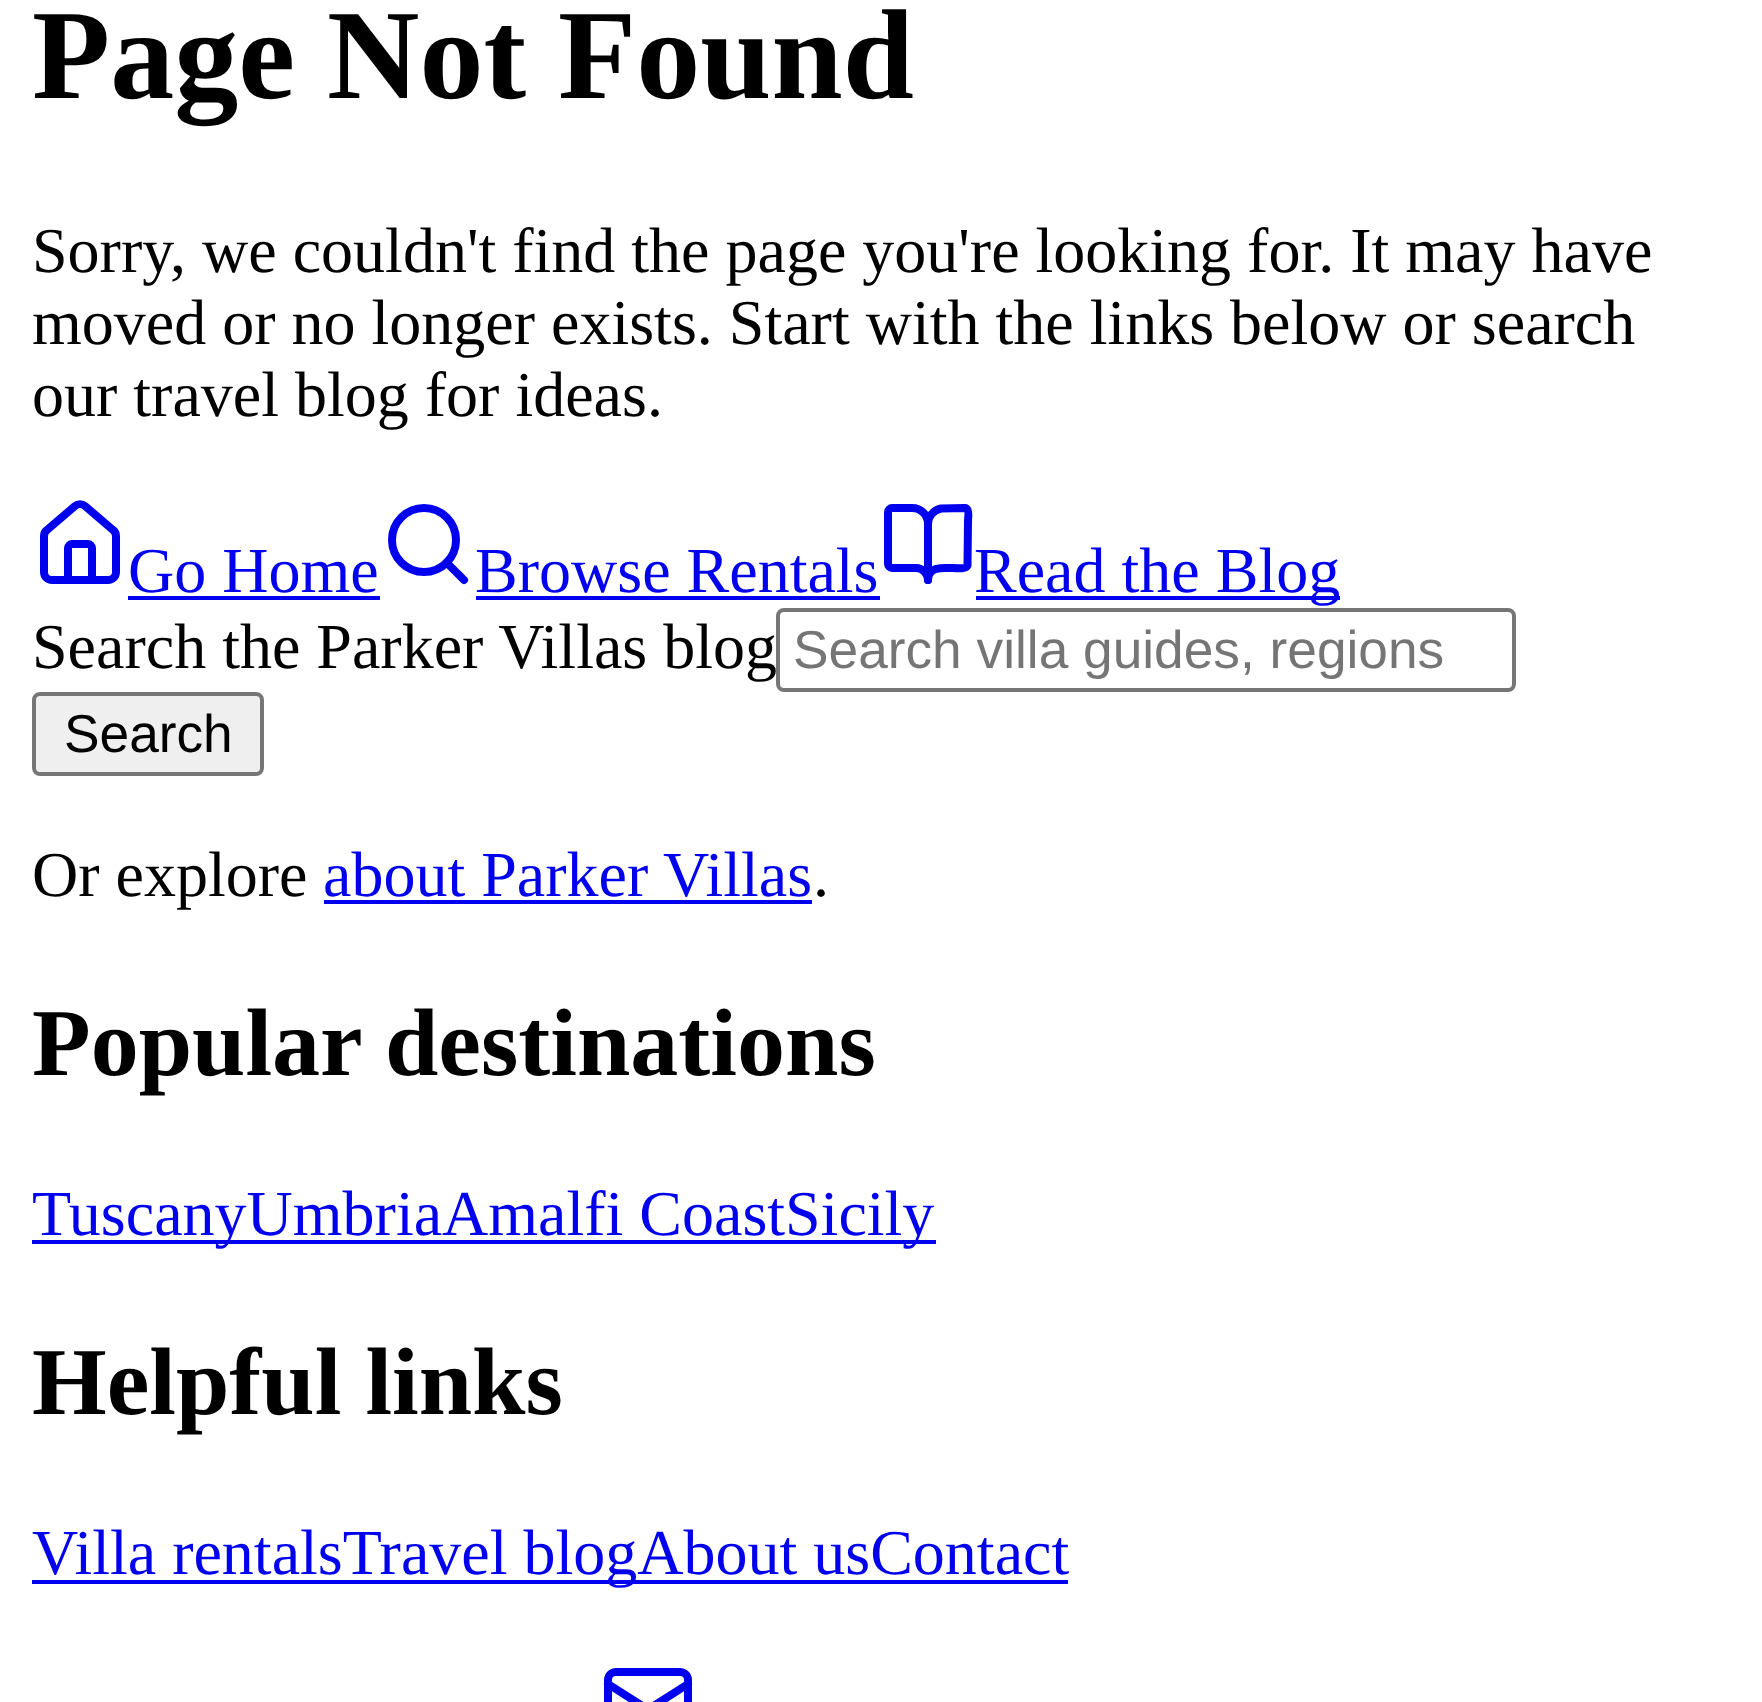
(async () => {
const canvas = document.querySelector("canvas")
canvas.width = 1762
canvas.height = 1702
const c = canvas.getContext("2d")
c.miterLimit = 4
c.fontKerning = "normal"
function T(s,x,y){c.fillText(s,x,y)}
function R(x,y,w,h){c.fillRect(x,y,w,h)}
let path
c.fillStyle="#fff"
R(0,0,1762,1702)
c.font="bold 128px Liberation Serif"
c.fillStyle="#000"
T("Page Not Found",32,98)
c.font="64px Liberation Serif"
T("Sorry, we couldn't find the page you're looking for. It may have",32,272)
T("moved or no longer exists. Start with the links below or search",32,344)
T("our travel blog for ideas.",32,416)
c.fillStyle="#00e"
T("Go Home",128,592)
R(128,596,252,4)
path = new Path2D("M92 580v-32c0-2-2-4-4-4h-16c-2 0-4 2-4 4v32")
c.strokeStyle="#00e"
c.lineWidth=8
c.lineCap="round"
c.lineJoin="round"
c.stroke(path)
path = new Path2D("M44 536c0-2.5 1-4.5 3-6l28-24c3-2.5 7-2.5 10 0l28 24c2 1.5 3 3.5 3 6v36c0 4.5-3.5 8-8 8h-56c-4.5 0-8-3.5-8-8z")
c.stroke(path)
T("Browse Rentals",475,592)
R(476,596,404,4)
path = new Path2D("M464 580l-17.5-17.5")
c.stroke(path)
c.beginPath()
c.arc(424,540,32,0,7)
c.stroke()
R(976,596,364,4)
T("Read the Blog",974,592)
path = new Path2D("M928 524v56")
c.stroke(path)
path = new Path2D("M892 568c-2 0-4-2-4-4v-52c0-2 2-4 4-4h20c9 0 16 7 16 16c0-7.5 5.5-14 13-15.5l24-.5c5 1 3 10 3 12.5l-.5 45c-3.5 8.5-39.5-7-39.5 14.5c0-6.5-5.5-12-12-12z")
c.stroke(path)
c.fillStyle="#000"
T("Search the Parker Villas blog",32,668)
c.beginPath()
c.roundRect(778,610,736,80,6)
c.strokeStyle="#767676"
c.lineWidth=4
c.lineJoin="miter"
c.stroke()
c.font="53.25px Liberation Sans"
c.fillStyle="#757575"
T("Search villa guides, regions",793,668)
c.fillStyle="#efefef"
c.beginPath()
c.roundRect(34,694,228,80,6)
c.fill()
c.stroke()
c.fillStyle="#000"
T("Search",64,752)
c.font="64px Liberation Serif"
T("Or explore",32,896)
c.fillStyle="#00e"
T("about Parker Villas",323,896)
R(324,900,488,4)
c.fillStyle="#000"
T(".",813,896)
c.font="bold 96px Liberation Serif"
T("Popular destinations",32,1075)
c.fillStyle="#00e"
R(32,1240,752,4)
c.font="64px Liberation Serif"
T("TuscanyUmbriaAmalfi Coast",32,1235)
R(784,1240,152,4)
T("Sicily",785,1235)
c.font="bold 96px Liberation Serif"
c.fillStyle="#000"
T("Helpful links",32,1414)
c.fillStyle="#00e"
R(32,1580,604,4)
c.font="64px Liberation Serif"
T("Villa rentalsTravel blogAbout usContact",32,1574)
R(636,1580,432,4)
path = new Path2D("M688 1684l-36 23c-2.5 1.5-5.5 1.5-8 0l-36-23")
c.strokeStyle="#00e"
c.lineWidth=8
c.lineJoin="round"
c.stroke(path)
c.beginPath()
c.roundRect(608,1672,80,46,8)
c.lineJoin="miter"
c.stroke()
})()
